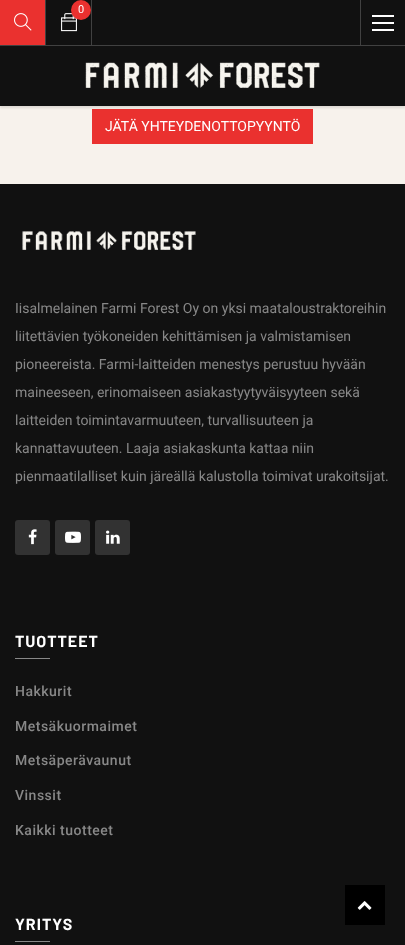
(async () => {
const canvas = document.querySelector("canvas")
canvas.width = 405
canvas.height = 945
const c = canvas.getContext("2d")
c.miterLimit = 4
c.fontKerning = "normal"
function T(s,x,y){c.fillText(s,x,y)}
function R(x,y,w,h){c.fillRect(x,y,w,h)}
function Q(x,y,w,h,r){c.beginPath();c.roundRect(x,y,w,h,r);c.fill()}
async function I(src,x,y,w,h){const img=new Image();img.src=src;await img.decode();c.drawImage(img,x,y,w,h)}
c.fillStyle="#f7f2ec"
R(0,0,405,945)
c.fillStyle="#ea312f"
R(92,109,221,35)
c.fillStyle="#0000001a"
c.filter="blur(1px)"
c.beginPath()
c.rect(0,-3,405,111)
c.fill()
c.filter="none"
c.fillStyle="#111"
R(46,0,359,45)
c.fillStyle="#414141"
R(0,45,405,1)
R(45,0,1,45)
c.fillStyle="#ea312f"
R(0,0,45,45)
await I("1.png",14,13,18,18)
c.fillStyle="#414141"
R(91,0,1,45)
await I("2.png",61,13,16,19)
c.fillStyle="#ea312f"
c.beginPath()
c.arc(81,10,10,0,7)
c.fill()
c.font="11px Roboto"
c.fillStyle="#fff"
T("0",78,13)
c.fillStyle="#414141"
R(360,0,1,45)
c.fillStyle="#fff"
R(372,15,22,2)
R(372,29,22,2)
R(372,22,22,2)
c.fillStyle="#111"
R(0,46,405,60)
await I("3.png",85,62,235,26)
c.font="14px Roboto"
c.fillStyle="#fff"
T("JÄTÄ YHTEYDENOTTOPYYNTÖ",105,131)
c.fillStyle="#111"
R(0,184,405,761)
await I("4.png",22,231,174,19)
c.fillStyle="#888"
T("Iisalmelainen Farmi Forest Oy on yksi maataloustraktoreihin",15,313)
T("liitettävien työkoneiden kehittämisen ja valmistamisen",15,341)
T("pioneereista. Farmi-laitteiden menestys perustuu hyvään",15,369)
T("maineeseen, erinomaiseen asiakastyytyväisyyteen sekä",15,397)
T("laitteiden toimintavarmuuteen, turvallisuuteen ja",15,425)
T("kannattavuuteen. Laaja asiakaskunta kattaa niin",15,453)
T("pienmaatilalliset kuin järeällä kalustolla toimivat urakoitsijat.",15,481)
c.fillStyle="#323232"
Q(15,520,35,35,3)
await I("5.png",28,529,9,16)
Q(55,520,35,35,3)
await I("6.png",65,531,16,12)
Q(95,520,35,35,3)
await I("7.png",106,530,14,14)
c.letterSpacing="1px"
c.font="bold 16px Barlow"
c.fillStyle="#fff"
T("TUOTTEET",15,647)
c.fillStyle="#888"
R(15,658,35,1)
c.letterSpacing="0.5px"
c.font="500 14px Roboto"
T("Hakkurit",15,696)
T("Metsäkuormaimet",15,731)
T("Metsäperävaunut",15,765)
T("Vinssit",15,800)
T("Kaikki tuotteet",15,835)
c.letterSpacing="1px"
c.font="bold 16px Barlow"
c.fillStyle="#fff"
T("YRITYS",15,930)
c.fillStyle="#888"
R(15,941,35,1)
c.fillStyle="#000"
R(345,885,40,40)
await I("8.png",357,901,15,9)
})()
